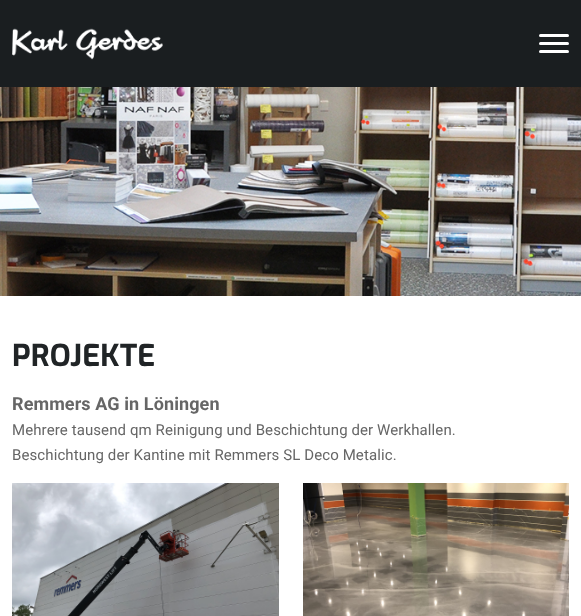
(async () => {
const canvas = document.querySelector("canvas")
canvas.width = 581
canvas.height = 616
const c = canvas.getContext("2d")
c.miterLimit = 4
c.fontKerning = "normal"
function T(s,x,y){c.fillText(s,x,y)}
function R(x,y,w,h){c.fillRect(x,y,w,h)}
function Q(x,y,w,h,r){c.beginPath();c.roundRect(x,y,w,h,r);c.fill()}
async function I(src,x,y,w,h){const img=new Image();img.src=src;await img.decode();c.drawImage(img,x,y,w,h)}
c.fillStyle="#fff"
R(0,0,581,616)
c.fillStyle="#1a1e20"
R(0,0,581,87)
await I("1.png",12,28,151,32)
c.fillStyle="#fff"
Q(539,42,30,3,1.5)
Q(539,34,30,3,1.5)
Q(539,50,30,3,1.5)
await I("2.png",0,87,581,209)
c.letterSpacing="0.1px"
c.font="bold 30px Exo"
c.fillStyle="#202426"
T("PROJEKTE",12,366)
c.font="bold 18px Roboto"
c.fillStyle="#666"
T("Remmers AG in Löningen",12,410)
c.font="15px Roboto"
T("Mehrere tausend qm Reinigung und Beschichtung der Werkhallen.",12,435)
T("Beschichtung der Kantine mit Remmers SL Deco Metalic.",12,460)
await I("3.png",12,483,267,133)
await I("4.png",303,483,266,133)
})()
